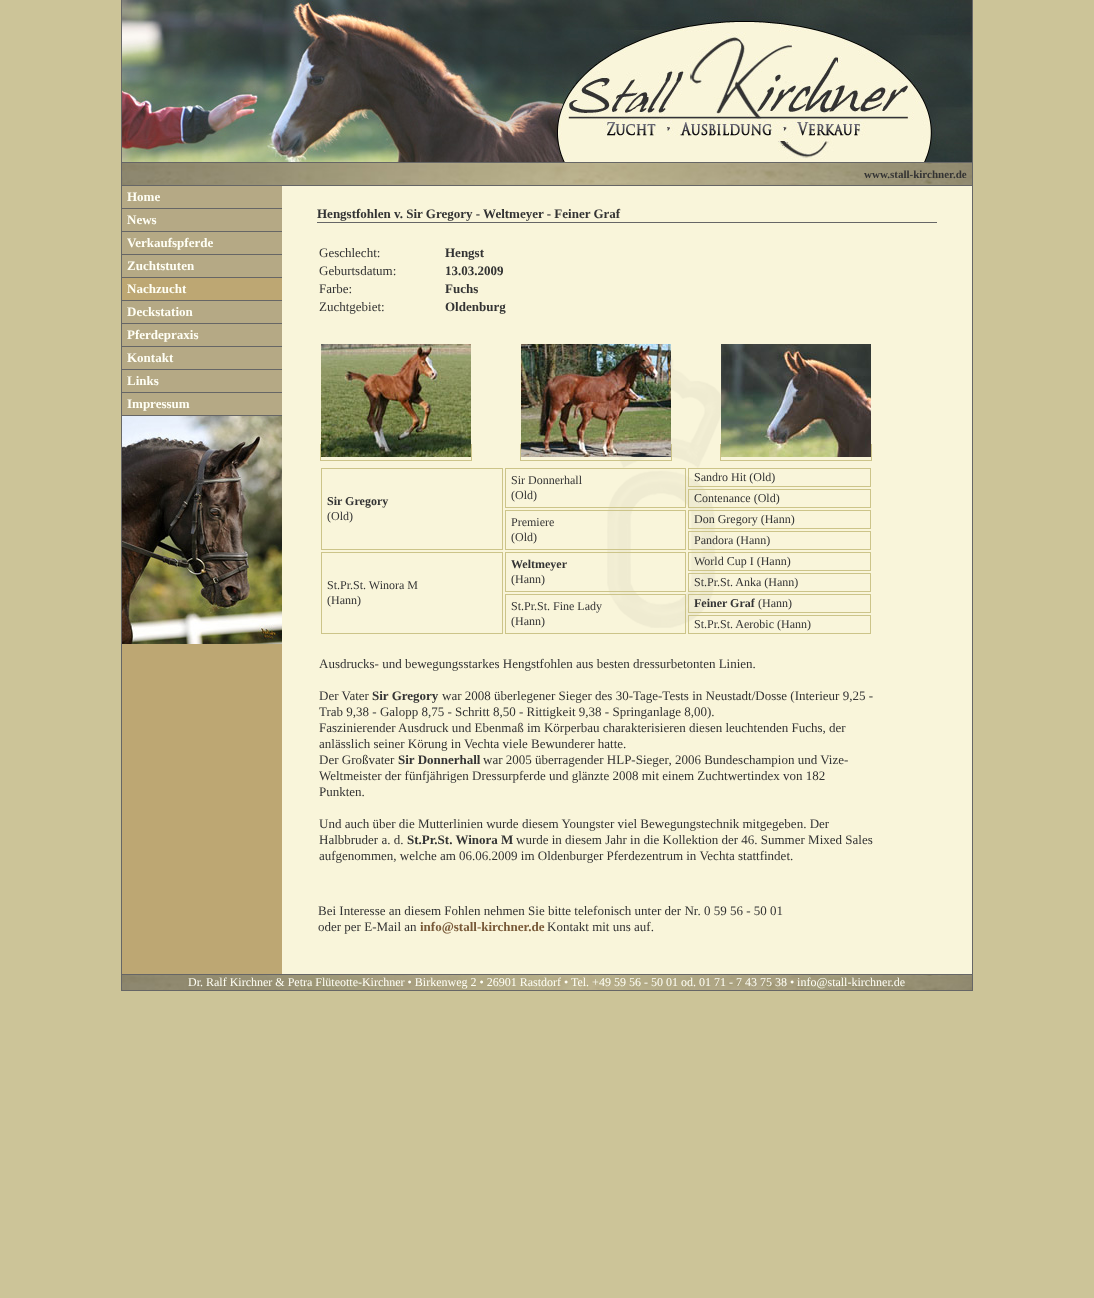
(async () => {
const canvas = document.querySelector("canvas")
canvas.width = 1094
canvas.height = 1298
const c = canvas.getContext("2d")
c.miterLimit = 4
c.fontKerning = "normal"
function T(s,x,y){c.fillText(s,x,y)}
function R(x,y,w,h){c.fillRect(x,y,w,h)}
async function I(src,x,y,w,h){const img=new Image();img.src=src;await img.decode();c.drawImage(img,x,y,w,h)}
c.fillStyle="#ccc498"
R(0,0,1094,1298)
await I("1.png",122,0,850,162)
c.fillStyle="#666"
R(972,162,1,829)
R(121,162,852,1)
R(972,0,1,163)
await I("2.png",122,163,850,22)
R(121,990,852,1)
R(121,974,1,17)
R(121,974,852,1)
R(121,185,1,790)
R(121,185,852,1)
R(121,0,1,186)
c.font="bold 11px Liberation Serif"
c.fillStyle="#333"
T("www.stall-kirchner.de",864,178)
c.fillStyle="#bda773"
R(122,278,160,696)
c.fillStyle="#b5a985"
R(122,186,160,22)
c.fillStyle="#666"
R(122,208,160,1)
c.font="bold 13px Liberation Serif"
c.fillStyle="#fffff5"
T("Home",127,201)
c.fillStyle="#b5a985"
R(122,209,160,22)
c.fillStyle="#666"
R(122,231,160,1)
c.fillStyle="#fffff5"
T("News",127,224)
c.fillStyle="#b5a985"
R(122,232,160,22)
c.fillStyle="#666"
R(122,254,160,1)
c.fillStyle="#fffff5"
T("Verkaufspferde",127,247)
c.fillStyle="#b5a985"
R(122,255,160,22)
c.fillStyle="#666"
R(122,277,160,1)
c.fillStyle="#fffff5"
T("Zuchtstuten",127,270)
c.fillStyle="#666"
R(122,300,160,1)
c.fillStyle="#fffff5"
T("Nachzucht",127,293)
c.fillStyle="#b5a985"
R(122,301,160,22)
c.fillStyle="#666"
R(122,323,160,1)
c.fillStyle="#fffff5"
T("Deckstation",127,316)
c.fillStyle="#b5a985"
R(122,324,160,22)
c.fillStyle="#666"
R(122,346,160,1)
c.fillStyle="#fffff5"
T("Pferdepraxis",127,339)
c.fillStyle="#b5a985"
R(122,347,160,22)
c.fillStyle="#666"
R(122,369,160,1)
c.fillStyle="#fffff5"
T("Kontakt",127,362)
c.fillStyle="#b5a985"
R(122,370,160,22)
c.fillStyle="#666"
R(122,392,160,1)
c.fillStyle="#fffff5"
T("Links",127,385)
c.fillStyle="#b5a985"
R(122,393,160,22)
c.fillStyle="#666"
R(122,415,160,1)
c.fillStyle="#fffff5"
T("Impressum",127,408)
await I("3.png",122,416,160,228)
c.fillStyle="#f9f5da"
R(282,186,690,788)
await I("4.png",607,358,114,270)
c.fillStyle="#666"
R(317,222,620,1)
c.fillStyle="#333"
T("Hengstfohlen v. Sir Gregory - Weltmeyer - Feiner Graf",317,218)
c.font="13px Liberation Serif"
T("Geschlecht:",319,257)
c.font="bold 13px Liberation Serif"
T("Hengst",445,257)
c.font="13px Liberation Serif"
T("Geburtsdatum:",319,275)
c.font="bold 13px Liberation Serif"
T("13.03.2009",445,275)
c.font="13px Liberation Serif"
T("Farbe:",319,293)
c.font="bold 13px Liberation Serif"
T("Fuchs",445,293)
c.font="13px Liberation Serif"
T("Zuchtgebiet:",319,311)
c.font="bold 13px Liberation Serif"
T("Oldenburg",445,311)
c.strokeStyle="#ccc489"
c.strokeRect(320.5,444.5,151,16)
await I("5.png",321,344,150,113)
c.strokeRect(520.5,444.5,151,16)
await I("6.png",521,344,150,113)
c.strokeRect(720.5,444.5,151,16)
await I("7.png",721,344,150,113)
c.strokeRect(505.5,468.5,180,39)
c.font="12px Liberation Serif"
T("Sir Donnerhall",511,484)
T("(Old)",511,499)
c.strokeRect(688.5,468.5,182,18)
T("Sandro Hit (Old)",694,481)
c.strokeRect(321.5,468.5,181,81)
c.font="bold 12px Liberation Serif"
T("Sir Gregory",327,505)
c.font="12px Liberation Serif"
T("(Old)",327,520)
c.strokeRect(688.5,489.5,182,18)
T("Contenance (Old)",694,502)
c.strokeRect(505.5,510.5,180,39)
T("Premiere",511,526)
T("(Old)",511,541)
c.strokeRect(688.5,510.5,182,18)
T("Don Gregory (Hann)",694,523)
c.strokeRect(688.5,531.5,182,18)
T("Pandora (Hann)",694,544)
c.strokeRect(505.5,552.5,180,39)
c.font="bold 12px Liberation Serif"
T("Weltmeyer",511,568)
c.font="12px Liberation Serif"
T("(Hann)",511,583)
c.strokeRect(688.5,552.5,182,18)
T("World Cup I (Hann)",694,565)
c.strokeRect(321.5,552.5,181,81)
T("St.Pr.St. Winora M",327,589)
T("(Hann)",327,604)
c.strokeRect(688.5,573.5,182,18)
T("St.Pr.St. Anka (Hann)",694,586)
c.strokeRect(505.5,594.5,180,39)
T("St.Pr.St. Fine Lady",511,610)
T("(Hann)",511,625)
c.strokeRect(688.5,594.5,182,18)
c.font="bold 12px Liberation Serif"
T("Feiner Graf",694,607)
c.font="12px Liberation Serif"
T("(Hann)",758,607)
c.strokeRect(688.5,615.5,182,18)
T("St.Pr.St. Aerobic (Hann)",694,628)
c.font="13px Liberation Serif"
T("Ausdrucks- und bewegungsstarkes Hengstfohlen aus besten dressurbetonten Linien.",319,668)
T("Der Vater",319,700)
c.font="bold 13px Liberation Serif"
T("Sir Gregory",372,700)
c.font="13px Liberation Serif"
T("war 2008 überlegener Sieger des 30-Tage-Tests in Neustadt/Dosse (Interieur 9,25 -",442,700)
T("Trab 9,38 - Galopp 8,75 - Schritt 8,50 - Rittigkeit 9,38 - Springanlage 8,00).",319,716)
T("Faszinierender Ausdruck und Ebenmaß im Körperbau charakterisieren diesen leuchtenden Fuchs, der",319,732)
T("anlässlich seiner Körung in Vechta viele Bewunderer hatte.",319,748)
T("Der Großvater",319,764)
c.font="bold 13px Liberation Serif"
T("Sir Donnerhall",398,764)
c.font="13px Liberation Serif"
T("war 2005 überragender HLP-Sieger, 2006 Bundeschampion und Vize-",483,764)
T("Weltmeister der fünfjährigen Dressurpferde und glänzte 2008 mit einem Zuchtwertindex von 182",319,780)
T("Punkten.",319,796)
T("Und auch über die Mutterlinien wurde diesem Youngster viel Bewegungstechnik mitgegeben. Der",319,828)
T("Halbbruder a. d.",319,844)
c.font="bold 13px Liberation Serif"
T("St.Pr.St. Winora M",407,844)
c.font="13px Liberation Serif"
T("wurde in diesem Jahr in die Kollektion der 46. Summer Mixed Sales",516,844)
T("aufgenommen, welche am 06.06.2009 im Oldenburger Pferdezentrum in Vechta stattfindet.",319,860)
T("Bei Interesse an diesem Fohlen nehmen Sie bitte telefonisch unter der Nr. 0 59 56 - 50 01",318,915)
T("oder per E-Mail an",318,931)
c.font="bold 13px Liberation Serif"
c.fillStyle="#785938"
T("info@stall-kirchner.de",420,931)
c.font="13px Liberation Serif"
c.fillStyle="#333"
T("Kontakt mit uns auf.",547,931)
await I("8.png",122,975,850,15)
c.font="12px Liberation Serif"
c.fillStyle="#fffff5"
T("Dr. Ralf Kirchner & Petra Flüteotte-Kirchner • Birkenweg 2 • 26901 Rastdorf • Tel. +49 59 56 - 50 01 od. 01 71 - 7 43 75 38 • info@stall-kirchner.de",188,986)
})()
